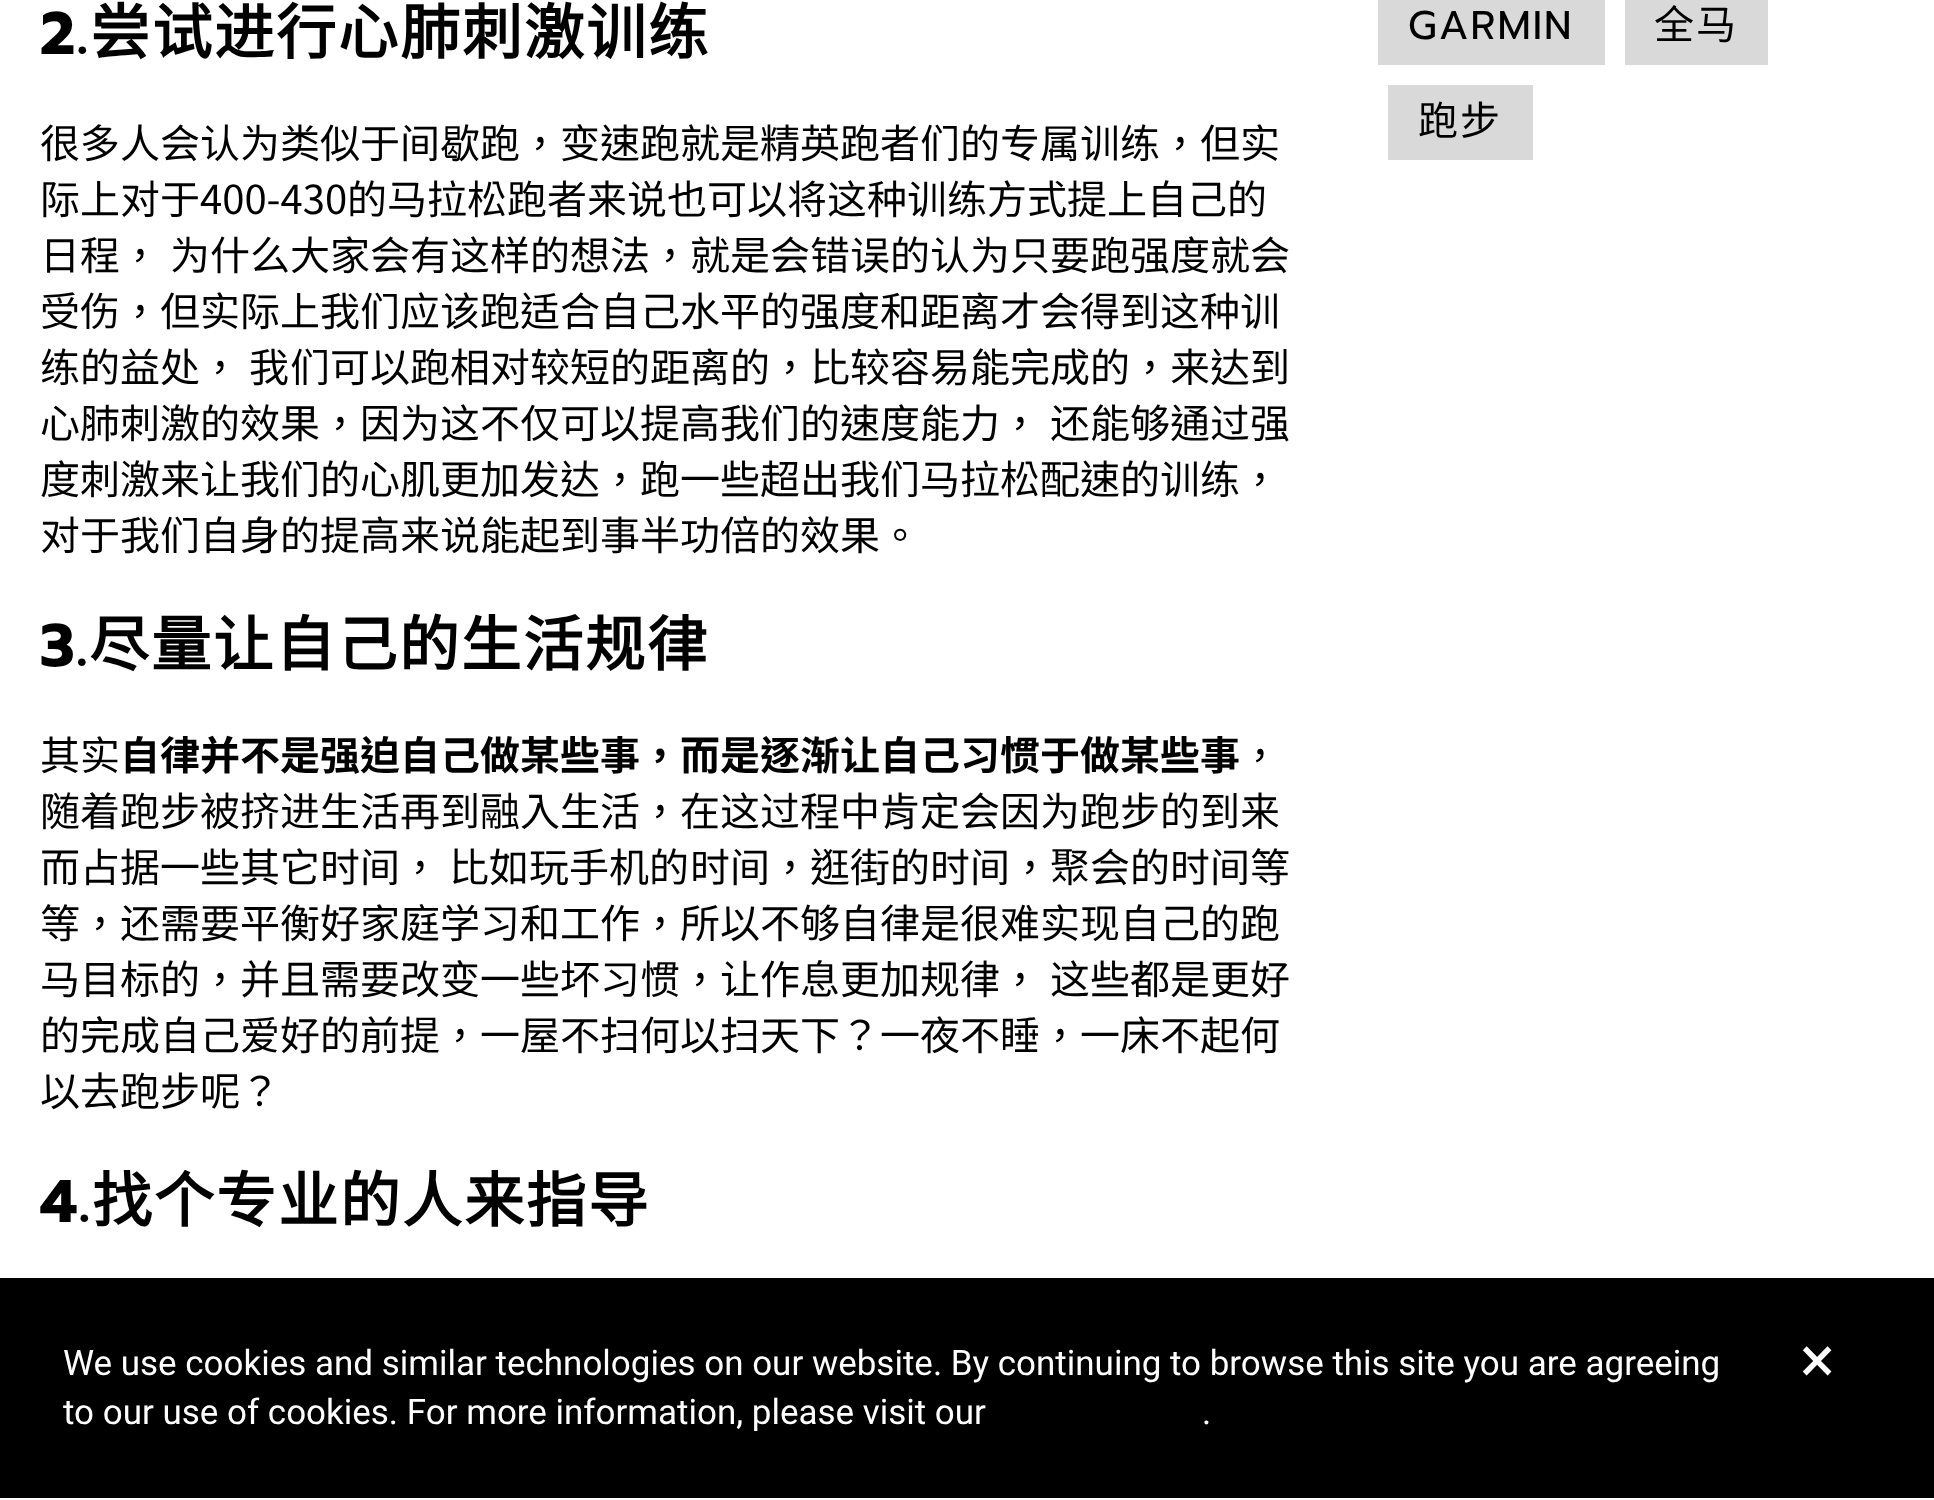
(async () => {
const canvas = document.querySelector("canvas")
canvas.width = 1934
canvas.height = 1500
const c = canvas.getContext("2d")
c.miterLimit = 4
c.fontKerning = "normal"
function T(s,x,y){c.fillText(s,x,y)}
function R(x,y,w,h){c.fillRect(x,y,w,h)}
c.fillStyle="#fff"
R(0,0,1934,1500)
c.letterSpacing="2px"
c.font="bold 60px Prompt"
c.fillStyle="#000"
T("2.",40,54)
c.font="bold 60px Noto Sans CJK SC"
T("尝试进行心肺刺激训练",90,54)
c.letterSpacing="0px"
c.font="40px Noto Sans TC"
T("很多人会",40,158)
c.font="40px Noto Sans SC"
T("认为",200,158)
c.font="40px Noto Sans TC"
T("类似于间歇跑，变速跑就是精英跑者",280,158)
c.font="40px Noto Sans SC"
T("们",920,158)
c.font="40px Noto Sans TC"
T("的",960,158)
c.font="40px Noto Sans SC"
T("专",1000,158)
c.font="40px Noto Sans TC"
T("属",1040,158)
c.font="40px Noto Sans SC"
T("训练",1080,158)
c.font="40px Noto Sans TC"
T("，但实",1160,158)
T("际上",40,214)
c.font="40px Noto Sans SC"
T("对",120,214)
c.font="40px Noto Sans TC"
T("于400-430的马拉松跑者",160,214)
c.font="40px Noto Sans SC"
T("来说",587,214)
c.font="40px Noto Sans TC"
T("也可以",667,214)
c.font="40px Noto Sans SC"
T("将这",787,214)
c.font="40px Noto Sans TC"
T("种",867,214)
c.font="40px Noto Sans SC"
T("训练",907,214)
c.font="40px Noto Sans TC"
T("方式提上自己的",987,214)
T("日程，",40,270)
c.font="40px Noto Sans SC"
T("为",170,270)
c.font="40px Noto Sans TC"
T("什么大家会有",210,270)
c.font="40px Noto Sans SC"
T("这",450,270)
c.font="40px Noto Sans TC"
T("样的想法，就是会",490,270)
c.font="40px Noto Sans SC"
T("错误",810,270)
c.font="40px Noto Sans TC"
T("的",890,270)
c.font="40px Noto Sans SC"
T("认为",930,270)
c.font="40px Noto Sans TC"
T("只要跑强度就会",1010,270)
T("受",40,326)
c.font="40px Noto Sans SC"
T("伤",80,326)
c.font="40px Noto Sans TC"
T("，但实际上我",120,326)
c.font="40px Noto Sans SC"
T("们应该",360,326)
c.font="40px Noto Sans TC"
T("跑适合自己水平的强度和距离才会得到",480,326)
c.font="40px Noto Sans SC"
T("这",1160,326)
c.font="40px Noto Sans TC"
T("种",1200,326)
c.font="40px Noto Sans SC"
T("训",1240,326)
T("练",40,382)
c.font="40px Noto Sans TC"
T("的益处， 我",80,382)
c.font="40px Noto Sans SC"
T("们",290,382)
c.font="40px Noto Sans TC"
T("可以跑相",330,382)
c.font="40px Noto Sans SC"
T("对较",490,382)
c.font="40px Noto Sans TC"
T("短的距离的，比",570,382)
c.font="40px Noto Sans SC"
T("较",850,382)
c.font="40px Noto Sans TC"
T("容易能完成的，",890,382)
c.font="40px Noto Sans SC"
T("来",1170,382)
c.font="40px Noto Sans TC"
T("达到",1210,382)
T("心肺刺激的效果，因",40,438)
c.font="40px Noto Sans SC"
T("为这",400,438)
c.font="40px Noto Sans TC"
T("不",480,438)
c.font="40px Noto Sans SC"
T("仅",520,438)
c.font="40px Noto Sans TC"
T("可以提高我",560,438)
c.font="40px Noto Sans SC"
T("们",760,438)
c.font="40px Noto Sans TC"
T("的速度能力，",800,438)
c.font="40px Noto Sans SC"
T("还",1050,438)
c.font="40px Noto Sans TC"
T("能够通",1090,438)
c.font="40px Noto Sans SC"
T("过",1210,438)
c.font="40px Noto Sans TC"
T("强",1250,438)
T("度刺激",40,494)
c.font="40px Noto Sans SC"
T("来让",160,494)
c.font="40px Noto Sans TC"
T("我",240,494)
c.font="40px Noto Sans SC"
T("们",280,494)
c.font="40px Noto Sans TC"
T("的心肌更加发达，跑一些超出我",320,494)
c.font="40px Noto Sans SC"
T("们",880,494)
c.font="40px Noto Sans TC"
T("马拉松配速的",920,494)
c.font="40px Noto Sans SC"
T("训练",1160,494)
c.font="40px Noto Sans TC"
T("，",1240,494)
c.font="40px Noto Sans SC"
T("对",40,550)
c.font="40px Noto Sans TC"
T("于我",80,550)
c.font="40px Noto Sans SC"
T("们",160,550)
c.font="40px Noto Sans TC"
T("自身的提高",200,550)
c.font="40px Noto Sans SC"
T("来说",400,550)
c.font="40px Noto Sans TC"
T("能起到事半功倍的效果。",480,550)
c.letterSpacing="2px"
c.font="bold 60px Prompt"
T("3.",40,666)
c.font="bold 60px Noto Sans CJK SC"
T("尽量让自己的生活规律",89,666)
c.letterSpacing="0px"
c.font="40px Noto Sans TC"
T("其实",40,770)
c.font="bold 40px Noto Sans TC"
T("自律并不是强迫自己做某些事，而是逐",120,770)
c.font="bold 40px Noto Sans SC"
T("渐让",800,770)
c.font="bold 40px Noto Sans TC"
T("自己",880,770)
c.font="bold 40px Noto Sans SC"
T("习惯",960,770)
c.font="bold 40px Noto Sans TC"
T("于做某些事",1040,770)
c.font="40px Noto Sans TC"
T("，",1240,770)
T("随着跑步被",40,826)
c.font="40px Noto Sans SC"
T("挤进",240,826)
c.font="40px Noto Sans TC"
T("生活再到融入生活，在",320,826)
c.font="40px Noto Sans SC"
T("这过",720,826)
c.font="40px Noto Sans TC"
T("程中肯定会因",800,826)
c.font="40px Noto Sans SC"
T("为",1040,826)
c.font="40px Noto Sans TC"
T("跑步的到",1080,826)
c.font="40px Noto Sans SC"
T("来",1240,826)
c.font="40px Noto Sans TC"
T("而占据一些其它",40,882)
c.font="40px Noto Sans SC"
T("时",320,882)
c.font="40px Noto Sans TC"
T("间， 比如玩手机的",360,882)
c.font="40px Noto Sans SC"
T("时",690,882)
c.font="40px Noto Sans TC"
T("间，逛街的",730,882)
c.font="40px Noto Sans SC"
T("时",930,882)
c.font="40px Noto Sans TC"
T("间，聚会的",970,882)
c.font="40px Noto Sans SC"
T("时",1170,882)
c.font="40px Noto Sans TC"
T("间等",1210,882)
T("等，",40,938)
c.font="40px Noto Sans SC"
T("还",120,938)
c.font="40px Noto Sans TC"
T("需要平衡好家庭学",160,938)
c.font="40px Noto Sans SC"
T("习",480,938)
c.font="40px Noto Sans TC"
T("和工作，所以不够自律是很",520,938)
c.font="40px Noto Sans SC"
T("难",1000,938)
c.font="40px Noto Sans TC"
T("实",1040,938)
c.font="40px Noto Sans SC"
T("现",1080,938)
c.font="40px Noto Sans TC"
T("自己的跑",1120,938)
T("马目",40,994)
c.font="40px Noto Sans SC"
T("标",120,994)
c.font="40px Noto Sans TC"
T("的，并且需要改变一些坏",160,994)
c.font="40px Noto Sans SC"
T("习惯",600,994)
c.font="40px Noto Sans TC"
T("，",680,994)
c.font="40px Noto Sans SC"
T("让",720,994)
c.font="40px Noto Sans TC"
T("作息更加",760,994)
c.font="40px Noto Sans SC"
T("规",920,994)
c.font="40px Noto Sans TC"
T("律，",960,994)
c.font="40px Noto Sans SC"
T("这",1050,994)
c.font="40px Noto Sans TC"
T("些都是更好",1090,994)
T("的完成自己",40,1050)
c.font="40px Noto Sans SC"
T("爱",240,1050)
c.font="40px Noto Sans TC"
T("好的前提，一屋不",280,1050)
c.font="40px Noto Sans SC"
T("扫",600,1050)
c.font="40px Noto Sans TC"
T("何以",640,1050)
c.font="40px Noto Sans SC"
T("扫",720,1050)
c.font="40px Noto Sans TC"
T("天下？一夜不睡，一床不起何",760,1050)
T("以去跑步呢？",40,1106)
c.letterSpacing="2px"
c.font="bold 60px Prompt"
T("4.",40,1222)
c.font="bold 60px Noto Sans CJK SC"
T("找个专业的人来指导",92,1222)
c.fillStyle="#d9d9d9"
R(1378,0,227,65)
c.font="40px Prompt"
c.fillStyle="#000"
T("GARMIN",1408,39)
c.fillStyle="#d9d9d9"
R(1625,0,143,65)
c.font="40px Noto Sans CJK SC"
c.fillStyle="#000"
T("全马",1654,39)
c.fillStyle="#d9d9d9"
R(1388,85,145,75)
c.fillStyle="#000"
T("跑步",1418,135)
R(0,1278,1934,220)
c.letterSpacing="0px"
c.font="35px Roboto"
c.fillStyle="#fff"
T("We use cookies and similar technologies on our website. By continuing to browse this site you are agreeing",63,1375)
c.save()
c.beginPath()
c.rect(63,1340,1810,98)
c.clip()
T("to our use of cookies. For more information, please visit our",63,1424)
c.restore()
T(".",1202,1424)
c.font="65px Roboto"
T("×",1800,1382)
})()
